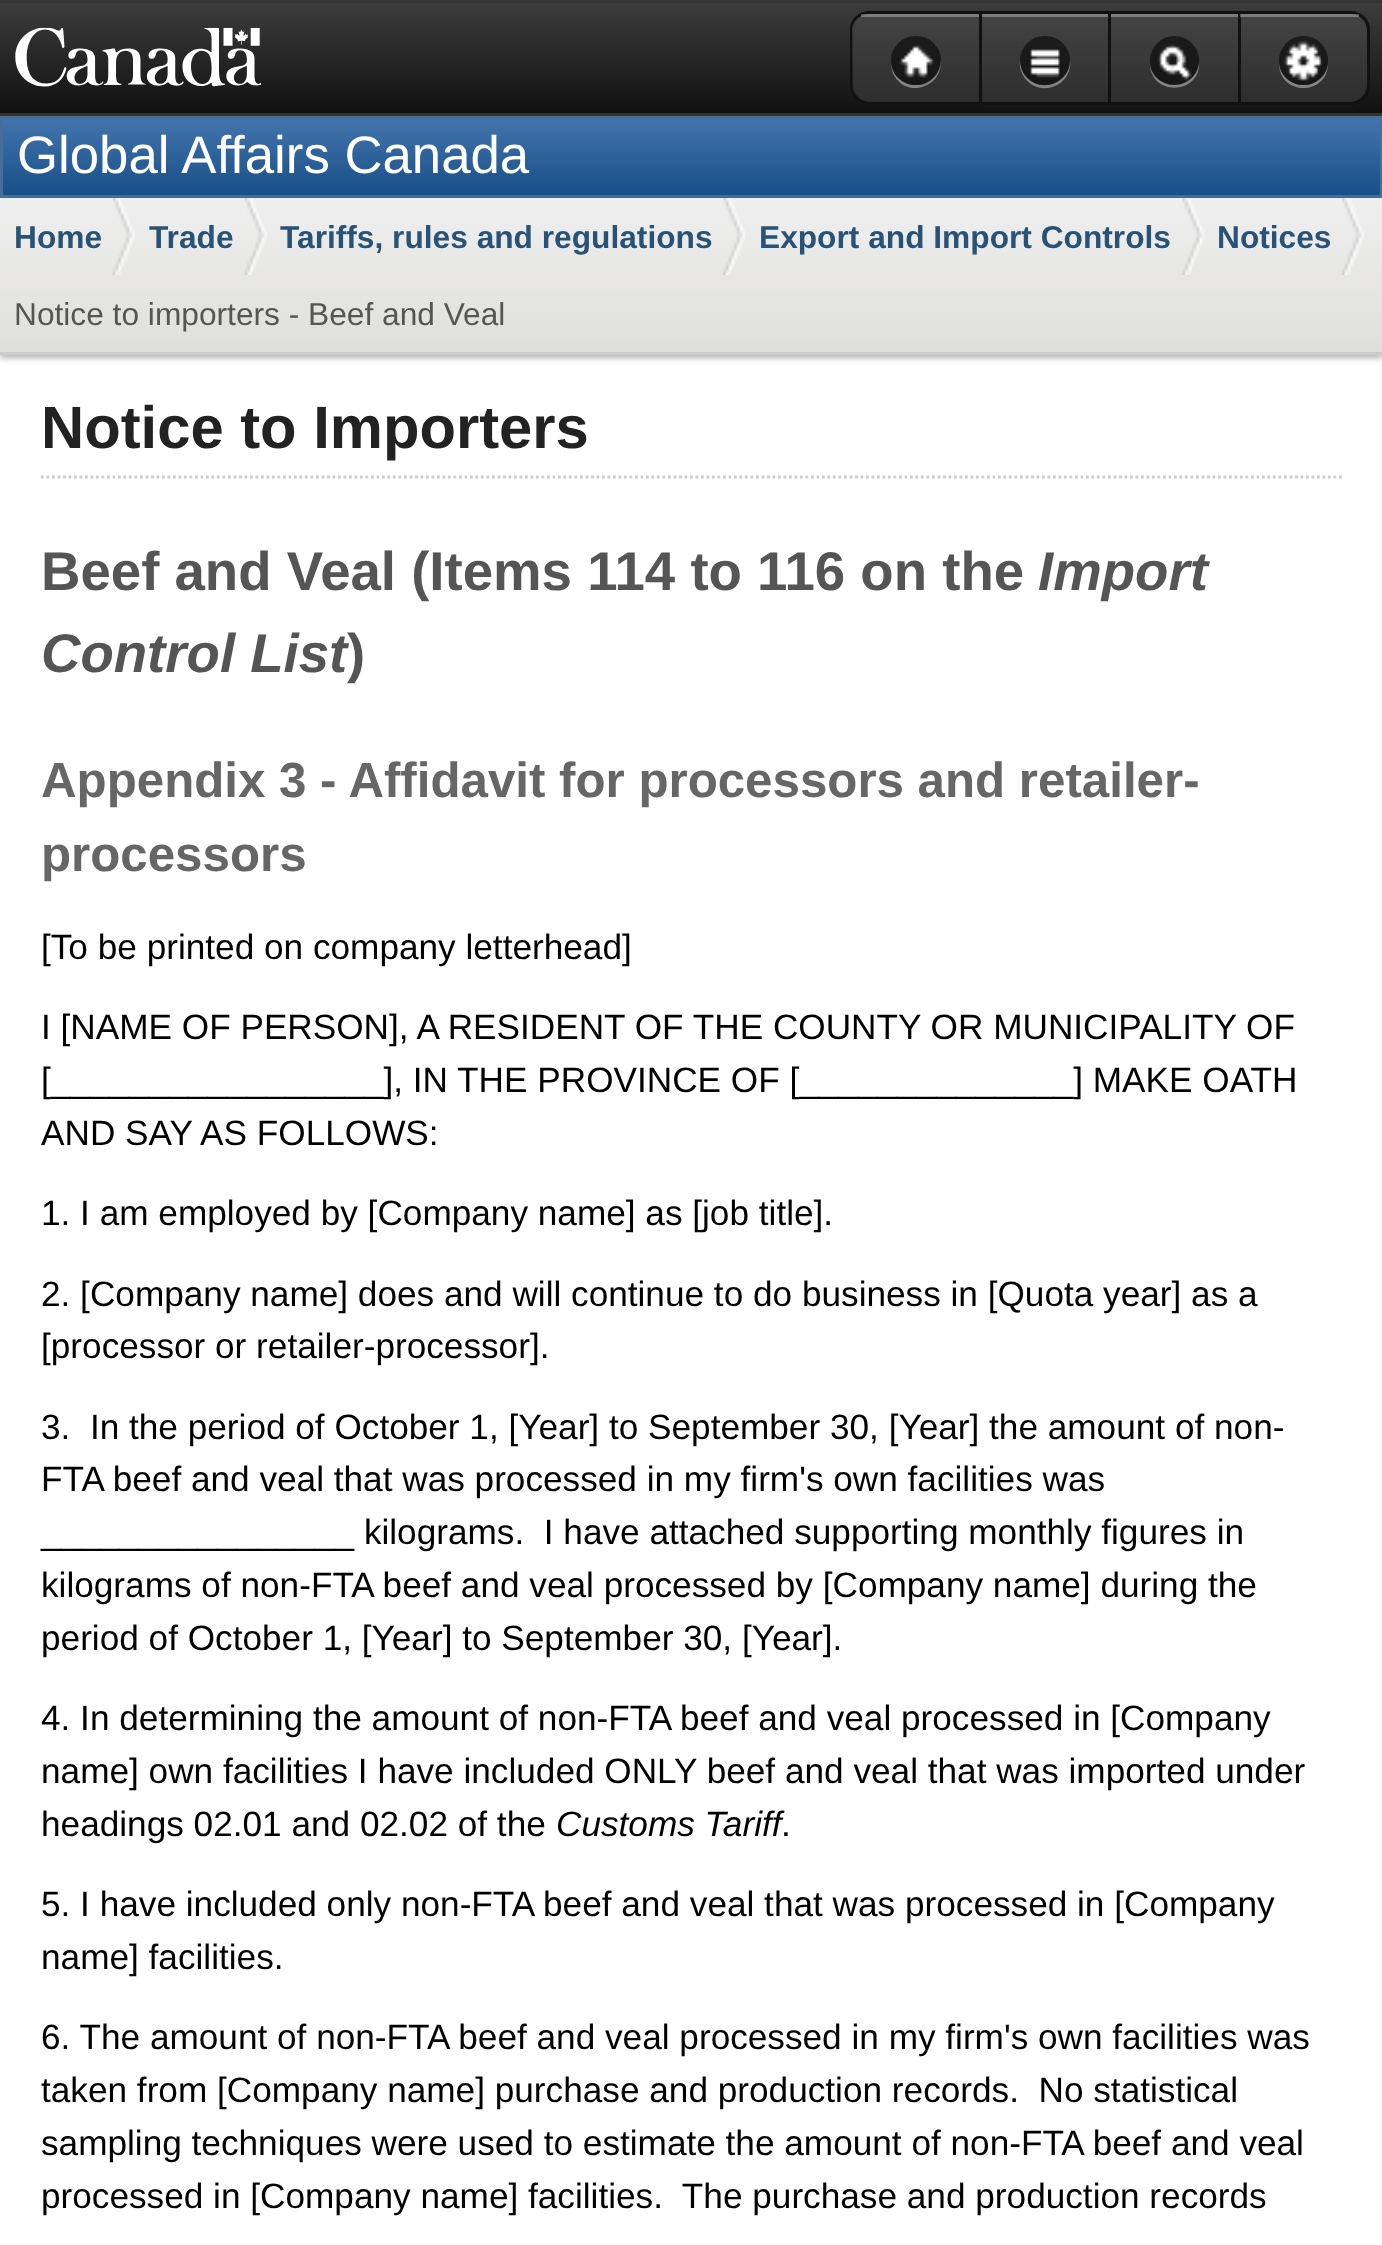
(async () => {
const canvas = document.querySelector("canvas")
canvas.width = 1382
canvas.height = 2245
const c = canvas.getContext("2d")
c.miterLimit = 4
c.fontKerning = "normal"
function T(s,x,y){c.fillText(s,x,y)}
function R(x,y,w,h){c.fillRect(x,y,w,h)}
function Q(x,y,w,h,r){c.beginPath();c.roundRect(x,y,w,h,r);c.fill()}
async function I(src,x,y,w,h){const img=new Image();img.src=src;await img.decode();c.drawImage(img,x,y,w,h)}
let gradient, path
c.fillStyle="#fff"
R(0,0,1382,2245)
gradient = c.createLinearGradient(692,2.7,692,113)
gradient.addColorStop(0,"#3c3c3c")
gradient.addColorStop(1,"#111")
c.fillStyle = gradient
R(0,3,1382,110)
c.fillStyle="#333"
R(0,0,1382,3)
R(0,113,1382,3)
await I("1.png",15,27,246,60)
gradient = c.createLinearGradient(916,14,916,102)
gradient.addColorStop(0,"#444")
gradient.addColorStop(1,"#2d2d2d")
c.fillStyle = gradient
c.beginPath()
c.roundRect(853,14,126,88,[17,0,0,17])
c.fill()
c.fillStyle="#111"
path = new Path2D("M869 11h110v93h-110c-11 0-19-8-19-19v-55c0-10 8-19 19-19zm0 3h110v88h-110c-9 0-17-8-17-17v-55c0-9 8-16 17-16z")
c.fill(path,"evenodd")
c.fillStyle="#ffffff4d"
R(861,14,118,3)
c.fillStyle="#ffffff66"
path = new Path2D("M891 62c0 5 1 11 4 15c15 23 51 7 45-19c1 6-1 12-4 16c-13 20-44 11-45-12z")
c.fill(path)
c.fillStyle="#0000008c"
Q(891,36,50,49,24.5)
await I("2.png",899,44,35,34)
gradient = c.createLinearGradient(1045,14,1045,102)
gradient.addColorStop(0,"#444")
gradient.addColorStop(1,"#2d2d2d")
c.fillStyle = gradient
R(982,17,126,85)
c.fillStyle="#111"
R(979,11,259,3)
R(979,102,259,3)
R(979,11,3,94)
c.fillStyle="#7c7c7c"
R(982,14,126,3)
c.fillStyle="#ffffff66"
path = new Path2D("M1020 60c-1 6 1 12 4 17c15 22 49 9 46-17c0 24-32 35-46 14c-2-4-4-9-4-14z")
c.fill(path)
c.fillStyle="#0000008c"
Q(1020,36,50,49,24.5)
await I("3.png",1030,49,30,29)
gradient = c.createLinearGradient(1174,14,1174,102)
gradient.addColorStop(0,"#444")
gradient.addColorStop(1,"#2d2d2d")
c.fillStyle = gradient
R(1111,17,127,85)
c.fillStyle="#111"
R(1108,11,3,94)
c.fillStyle="#7c7c7c"
R(1111,14,127,3)
c.fillStyle="#ffffff66"
path = new Path2D("M1199 62c-2 28-43 31-49 4c3 31 51 28 49-4z")
c.fill(path)
c.fillStyle="#0000008c"
c.beginPath()
c.arc(1174.5,60.5,24.5,0,7)
c.fill()
await I("4.png",1157,44,35,37)
gradient = c.createLinearGradient(1304,14,1304,102)
gradient.addColorStop(0,"#444")
gradient.addColorStop(1,"#2d2d2d")
c.fillStyle = gradient
c.beginPath()
c.roundRect(1240,14,127,88,[0,17,17,0])
c.fill()
c.beginPath()
c.roundRect(1239.5,12.5,129,91,[0,17.5,17.5,0])
c.strokeStyle="#111"
c.lineWidth=3
c.stroke()
c.fillStyle="#ffffff4d"
R(1240,14,119,3)
c.fillStyle="#ffffff66"
path = new Path2D("M1328 64c-4 28-45 28-49 0c1 32 48 32 49 0z")
c.fill(path)
c.fillStyle="#0000008c"
c.beginPath()
c.arc(1303.5,60.5,24.5,0,7)
c.fill()
await I("5.png",1283,40,40,41)
gradient = c.createLinearGradient(692,118,692,195)
gradient.addColorStop(0,"#4474ad")
gradient.addColorStop(1,"#174f88")
c.fillStyle = gradient
R(3,119,1377,76)
c.strokeStyle="#456f9a"
c.strokeRect(1.5,117.5,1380,79)
c.font="52.75px Liberation Sans"
c.fillStyle="#fff"
T("Global Affairs Canada",17,173)
c.fillStyle="#0000004d"
c.filter="blur(3px)"
c.beginPath()
c.rect(0,201,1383,157)
c.fill()
c.filter="none"
gradient = c.createLinearGradient(692,198,692,352)
gradient.addColorStop(0,"#f0efef")
gradient.addColorStop(1,"#dfdfdd")
c.fillStyle = gradient
R(0,198,1382,154)
c.fillStyle="#ccc"
R(0,352,1382,3)
await I("6.png",112,198,23,77)
c.font="bold 31.7px Liberation Sans"
c.fillStyle="#295376"
T("Home",14,248)
await I("6.png",244,198,23,77)
T("Trade",149,248)
await I("7.png",723,198,22,77)
T("Tariffs, rules and regulations",280,248)
await I("8.png",1182,198,23,77)
T("Export and Import Controls",759,248)
await I("9.png",1342,198,22,77)
T("Notices",1217,248)
c.font="31.7px Liberation Sans"
c.fillStyle="#555"
T("Notice to importers - Beef and Veal",14,325)
path = new Path2D("M41 477h1301")
c.strokeStyle="#ccc"
c.lineWidth=2.8
c.setLineDash([2.75,2.75])
c.stroke(path)
c.font="bold 59.75px Liberation Sans"
c.fillStyle="#222"
T("Notice to Importers",41,448)
c.font="bold 54.6px Liberation Sans"
c.fillStyle="#555"
T("Beef and Veal (Items 114 to 116 on the",41,590)
c.font="italic bold 54.6px Liberation Sans"
T("Import",1038,590)
T("Control List",41,672)
c.font="bold 54.6px Liberation Sans"
T(")",347,672)
c.font="bold 49.25px Liberation Sans"
c.fillStyle="#666"
T("Appendix 3 - Affidavit for processors and retailer-",41,797)
T("processors",41,871)
c.font="35.2px Liberation Sans"
c.fillStyle="#000"
T("[To be printed on company letterhead]",41,959)
T("I [NAME OF PERSON], A RESIDENT OF THE COUNTY OR MUNICIPALITY OF",41,1039)
T("[_________________], IN THE PROVINCE OF [______________] MAKE OATH",41,1092)
T("AND SAY AS FOLLOWS:",41,1145)
T("1. I am employed by [Company name] as [job title].",41,1225)
T("2. [Company name] does and will continue to do business in [Quota year] as a",41,1306)
T("[processor or retailer-processor].",41,1358)
T("3.  In the period of October 1, [Year] to September 30, [Year] the amount of non-",41,1439)
T("FTA beef and veal that was processed in my firm's own facilities was",41,1491)
T("________________ kilograms.  I have attached supporting monthly figures in",41,1544)
T("kilograms of non-FTA beef and veal processed by [Company name] during the",41,1597)
T("period of October 1, [Year] to September 30, [Year].",41,1650)
T("4. In determining the amount of non-FTA beef and veal processed in [Company",41,1730)
T("name] own facilities I have included ONLY beef and veal that was imported under",41,1783)
T("headings 02.01 and 02.02 of the",41,1836)
c.font="italic 35.2px Liberation Sans"
T("Customs Tariff",556,1836)
c.font="35.2px Liberation Sans"
T(".",781,1836)
T("5. I have included only non-FTA beef and veal that was processed in [Company",41,1916)
T("name] facilities.",41,1969)
T("6. The amount of non-FTA beef and veal processed in my firm's own facilities was",41,2049)
T("taken from [Company name] purchase and production records.  No statistical",41,2102)
T("sampling techniques were used to estimate the amount of non-FTA beef and veal",41,2155)
T("processed in [Company name] facilities.  The purchase and production records",41,2208)
})()
